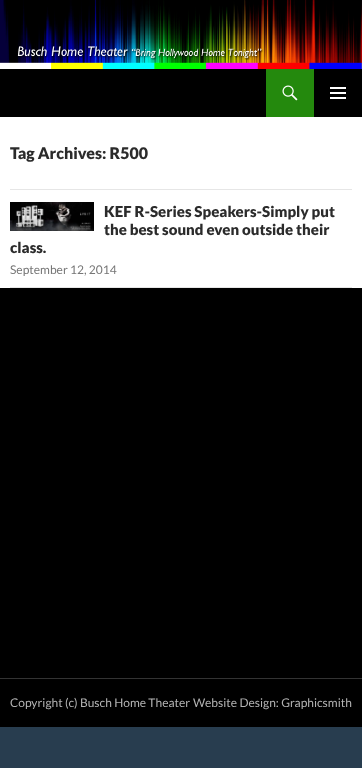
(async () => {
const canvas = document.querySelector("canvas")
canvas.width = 362
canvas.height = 768
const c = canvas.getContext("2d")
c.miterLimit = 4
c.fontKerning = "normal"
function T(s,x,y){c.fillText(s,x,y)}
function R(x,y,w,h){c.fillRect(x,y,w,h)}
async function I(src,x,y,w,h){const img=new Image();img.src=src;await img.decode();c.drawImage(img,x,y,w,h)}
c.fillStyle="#283d4f"
R(0,0,362,768)
c.fillStyle="#fff"
R(0,117,362,171)
await I("1.png",0,0,362,69)
c.fillStyle="#000"
R(0,69,362,48)
c.fillStyle="#24890d"
R(266,69,48,48)
await I("2.png",282,85,16,16)
await I("3.png",330,87,16,12)
c.fillStyle="#e6e6e6"
R(10,189,342,1)
c.font="900 16px Lato"
c.fillStyle="#2b2b2b"
T("Tag Archives: R500",10,159)
c.fillStyle="#e6e6e6"
R(10,287,342,1)
await I("4.png",10,202,84,29)
c.font="900 15px Lato"
c.fillStyle="#2b2b2b"
T("KEF R-Series Speakers-Simply put",104,217)
T("the best sound even outside their",104,235)
T("class.",10,253)
c.font="12px Lato"
c.fillStyle="#767676"
T("September 12, 2014",10,274)
c.fillStyle="#000"
R(0,288,362,439)
c.fillStyle="#333"
R(0,678,362,1)
c.fillStyle="#b3b3b3"
T("Copyright (c) Busch Home Theater",10,707)
T("Website Design: Graphicsmith",193,707)
})()
